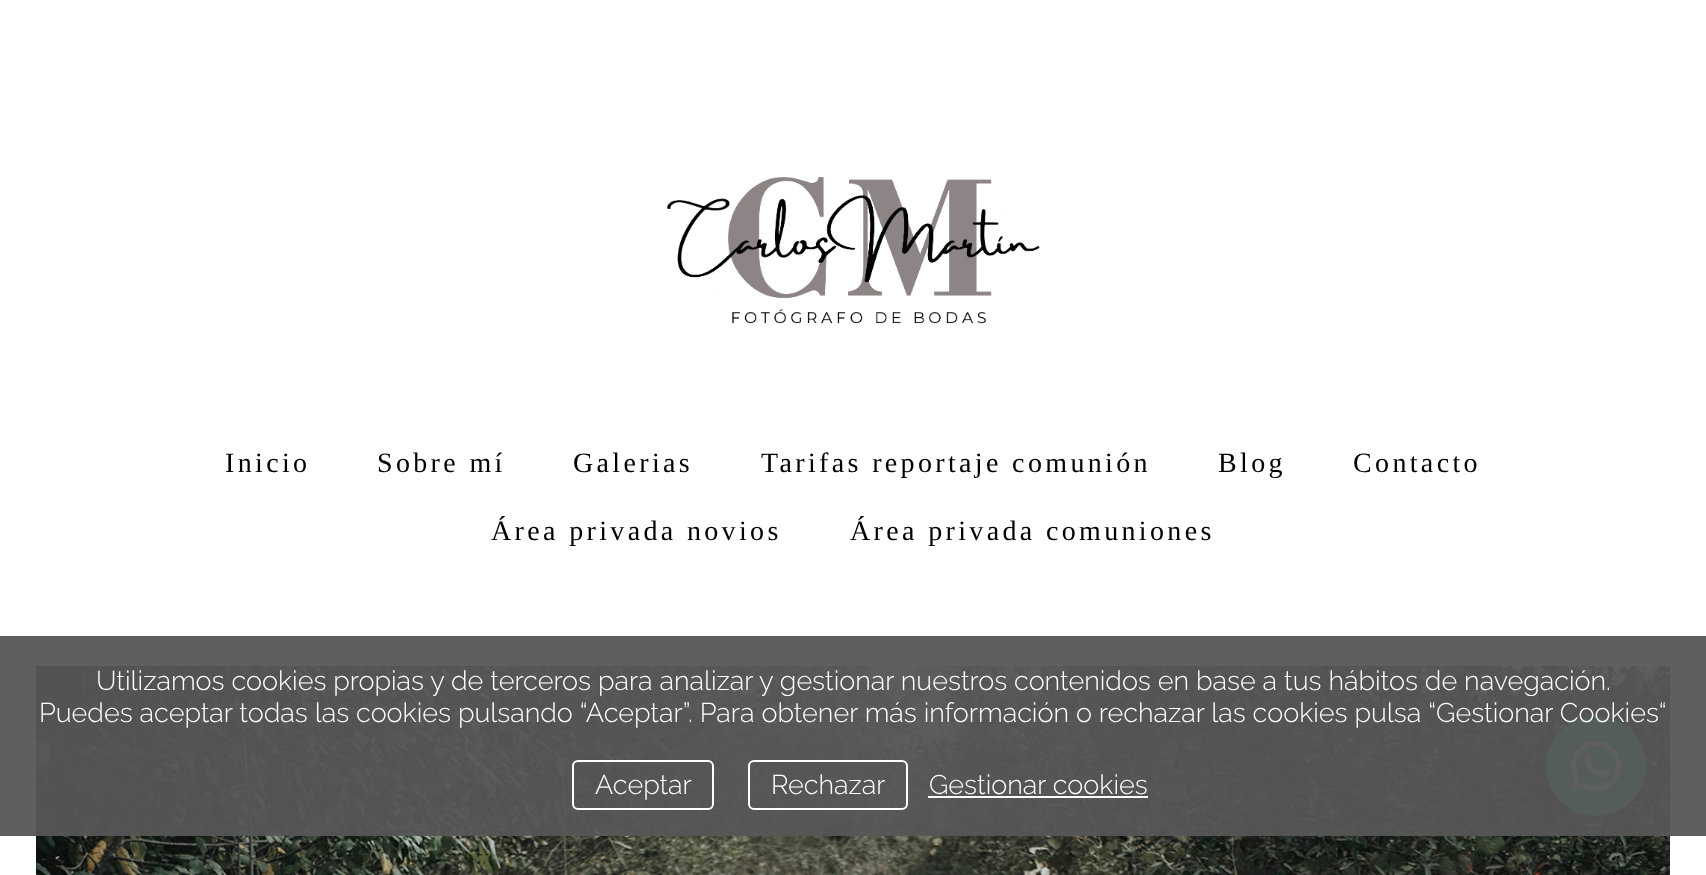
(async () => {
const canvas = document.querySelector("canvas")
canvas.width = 1706
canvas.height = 875
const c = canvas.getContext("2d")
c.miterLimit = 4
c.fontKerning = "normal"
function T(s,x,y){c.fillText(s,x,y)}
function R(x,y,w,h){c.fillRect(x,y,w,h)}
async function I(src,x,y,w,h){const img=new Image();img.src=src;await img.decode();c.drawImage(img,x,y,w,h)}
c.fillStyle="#fff"
R(0,0,1706,875)
await I("1.png",666,177,374,147)
c.letterSpacing="3.35px"
c.font="28px Liberation Serif"
c.fillStyle="#000"
T("Inicio",225,472)
T("Sobre mí",377,472)
T("Galerias",573,472)
T("Tarifas reportaje comunión",761,472)
T("Blog",1218,472)
T("Contacto",1353,472)
T("Área privada novios",491,540)
T("Área privada comuniones",850,540)
await I("2.png",36,666,1634,209)
c.fillStyle="#25d366"
c.beginPath()
c.arc(1596,766,50,0,7)
c.fill()
await I("3.png",1571,741,50,50)
c.fillStyle="#565656f2"
R(0,636,1706,200)
c.letterSpacing="0px"
c.font="300 27px Raleway"
c.fillStyle="#fff"
T("Utilizamos cookies propias y de terceros para analizar y gestionar nuestros contenidos en base a tus hábitos de navegación.",96,690)
T("Puedes aceptar todas las cookies pulsando “Aceptar”. Para obtener más información o rechazar las cookies pulsa “Gestionar Cookies“",39,722)
c.beginPath()
c.roundRect(573,761,140,48,5)
c.strokeStyle="#fff"
c.lineWidth=2
c.stroke()
T("Aceptar",595,794)
c.beginPath()
c.roundRect(749,761,158,48,5)
c.stroke()
T("Rechazar",771,794)
T("Gestionar cookies",929,794)
R(928,796,220,2)
})()
